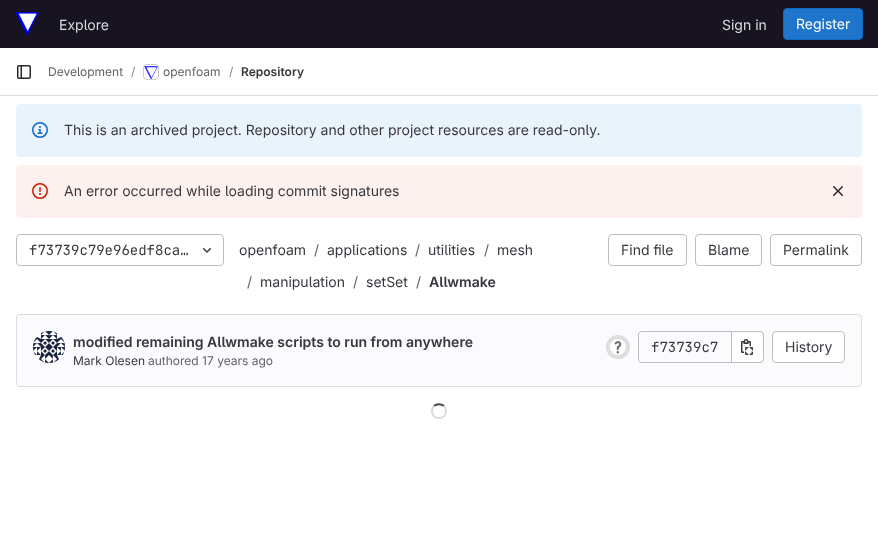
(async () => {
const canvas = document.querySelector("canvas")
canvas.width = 878
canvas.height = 540
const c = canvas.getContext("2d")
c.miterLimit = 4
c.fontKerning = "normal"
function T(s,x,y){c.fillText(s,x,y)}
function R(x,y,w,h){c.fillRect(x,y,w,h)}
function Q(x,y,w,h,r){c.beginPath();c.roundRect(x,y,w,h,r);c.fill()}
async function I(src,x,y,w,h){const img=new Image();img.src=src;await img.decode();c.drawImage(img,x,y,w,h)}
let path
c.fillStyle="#fff"
R(0,0,878,540)
c.fillStyle="#171321"
R(0,0,878,48)
await I("1.png",15,12,24,24)
c.font="14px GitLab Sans"
c.fillStyle="#dcdcde"
T("Explore",59,30)
T("Sign in",722,30)
c.fillStyle="#1f75cb"
c.beginPath()
c.roundRect(783.5,8.5,79,31,3.5)
c.fill()
c.strokeStyle="#1068bf"
c.stroke()
c.fillStyle="#fff"
T("Register",796,29)
c.fillStyle="#dcdcde"
R(0,95,878,1)
await I("2.png",17,65,14,14)
c.font="12px GitLab Sans"
c.fillStyle="#626168"
T("Development",48,76)
c.fillStyle="#89888d"
T("/",131,76)
c.beginPath()
c.roundRect(143.5,64.5,15,15,3.5)
c.strokeStyle="#dcdcde"
c.stroke()
await I("3.png",144,66,14,13)
c.beginPath()
c.roundRect(143.5,64.5,15,15,3.5)
c.strokeStyle="#05050614"
c.stroke()
c.fillStyle="#626168"
T("openfoam",163,76)
c.fillStyle="#89888d"
T("/",229,76)
c.font="600 12px GitLab Sans"
c.fillStyle="#3a383f"
T("Repository",241,76)
c.fillStyle="#e9f3fc"
Q(16,104,846,53,4)
await I("4.png",32,122,16,16)
c.font="14px GitLab Sans"
c.fillStyle="#3a383f"
T("This is an archived project. Repository and other project resources are read-only.",64,135)
c.fillStyle="#fcf1ef"
Q(16,165,846,53,4)
await I("5.png",32,183,16,16)
c.fillStyle="#3a383f"
T("An error occurred while loading commit signatures",64,196)
await I("6.png",833,186,10,10)
c.beginPath()
c.roundRect(16.5,234.5,207,31,3.5)
c.strokeStyle="#bfbfc3"
c.stroke()
c.font="14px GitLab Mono"
T("f73739c79e96edf8ca…",29,255)
await I("7.png",203,248,8,5)
c.font="14px GitLab Sans"
T("openfoam",239,255)
c.fillStyle="#626168"
T("/",314,255)
c.fillStyle="#3a383f"
T("applications",327,255)
c.fillStyle="#626168"
T("/",415,255)
c.fillStyle="#3a383f"
T("utilities",428,255)
c.fillStyle="#626168"
T("/",484,255)
c.fillStyle="#3a383f"
T("mesh",497,255)
c.fillStyle="#626168"
T("/",247,287)
c.fillStyle="#3a383f"
T("manipulation",260,287)
c.fillStyle="#626168"
T("/",353,287)
c.fillStyle="#3a383f"
T("setSet",366,287)
c.fillStyle="#626168"
T("/",416,287)
c.font="600 14px GitLab Sans"
c.fillStyle="#3a383f"
T("Allwmake",429,287)
c.beginPath()
c.roundRect(608.5,234.5,78,31,3.5)
c.stroke()
c.font="14px GitLab Sans"
T("Find file",621,255)
c.beginPath()
c.roundRect(695.5,234.5,66,31,3.5)
c.stroke()
T("Blame",708,255)
c.beginPath()
c.roundRect(770.5,234.5,91,31,3.5)
c.stroke()
T("Permalink",783,255)
c.fillStyle="#fbfafd"
c.beginPath()
c.roundRect(16.5,314.5,845,72,3.5)
c.fill()
c.strokeStyle="#dcdcde"
c.stroke()
c.beginPath()
c.arc(49,347,15.5,0,7)
c.strokeStyle="#e7e6e9"
c.stroke()
await I("8.png",33,331,32,32)
c.font="600 14px GitLab Sans"
c.fillStyle="#3a383f"
T("modified remaining Allwmake scripts to run from anywhere",73,347)
c.font="12px GitLab Sans"
T("Mark Olesen",73,365)
c.fillStyle="#626168"
T("authored 17 years ago",148,365)
c.beginPath()
c.arc(618,347,11,0,7)
c.strokeStyle="#dcdcde"
c.lineWidth=2
c.stroke()
c.fillStyle="#fff"
c.beginPath()
c.arc(618,347,9,0,7)
c.fill()
c.stroke()
await I("9.png",614,341,8,13)
c.fillStyle="#bfbfc3"
path = new Path2D("M642 331h89v32h-89c-2 0-4-2-4-4v-24c0-2 2-4 4-4zm0 1h89v30h-89c-2 0-3-1-3-3v-24c0-2 1-3 3-3z")
c.fill(path,"evenodd")
c.font="14px GitLab Mono"
c.fillStyle="#3a383f"
T("f73739c7",651,352)
c.fillStyle="#fff"
c.beginPath()
c.roundRect(732,332,31,30,[0,3,3,0])
c.fill()
c.fillStyle="#bfbfc3"
path = new Path2D("M732 331h28c2 0 4 2 4 4v24c0 2-2 4-4 4h-28zm0 1h28c1.5 0 3 1.5 3 3v24c0 1.5-1.5 3-3 3h-28z")
c.fill(path,"evenodd")
R(731,331,1,32)
await I("10.png",741,339,12,16)
c.fillStyle="#fff"
c.beginPath()
c.roundRect(772.5,331.5,72,31,3.5)
c.fill()
c.strokeStyle="#bfbfc3"
c.lineWidth=1
c.stroke()
c.font="14px GitLab Sans"
c.fillStyle="#3a383f"
T("History",785,352)
path = new Path2D("M434 406c2.5-2.5 7.5-2.5 10 0")
c.strokeStyle="#4c4b51"
c.lineWidth=2
c.stroke(path)
path = new Path2D("M444 406c1.5 1.5 2 3 2 5c0 8.5-12 9.5-14 1.5c-.5-2.5 .5-5 2-6.5")
c.strokeStyle="#dcdcde"
c.stroke(path)
})()
